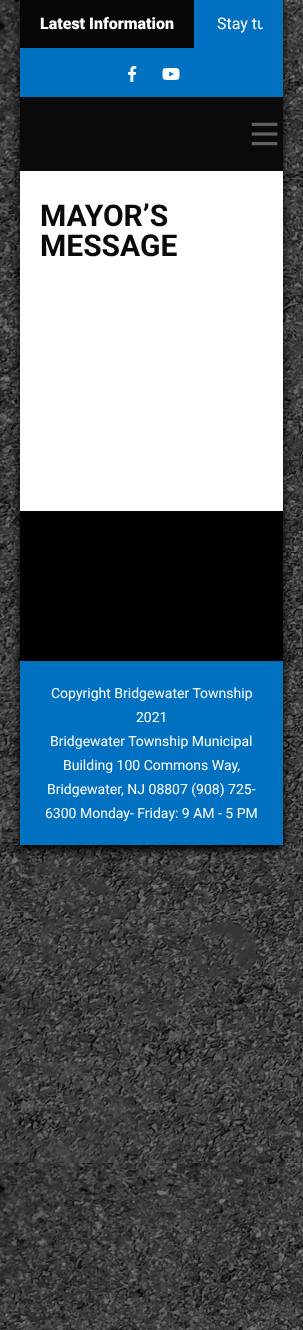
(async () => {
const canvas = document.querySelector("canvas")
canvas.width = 303
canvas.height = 1330
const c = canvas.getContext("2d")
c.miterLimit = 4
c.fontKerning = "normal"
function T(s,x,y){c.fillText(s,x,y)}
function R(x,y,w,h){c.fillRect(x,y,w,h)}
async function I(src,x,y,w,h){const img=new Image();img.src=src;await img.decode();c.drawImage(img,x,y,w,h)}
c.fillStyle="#fff"
R(0,0,303,1330)
await I("1.png",0,0,303,1330)
c.fillStyle="#000"
c.filter="blur(5px)"
c.beginPath()
c.rect(20,5,263,845)
c.fill()
c.filter="none"
c.fillStyle="#fff"
R(20,171,263,340)
c.fillStyle="#0070c0"
R(20,0,263,97)
c.fillStyle="#060606"
R(20,0,174,48)
c.font="900 16px Roboto"
c.fillStyle="#fff"
T("Latest Information",40,29)
c.save()
c.beginPath()
c.rect(40,0,223,48)
c.clip()
c.font="16px Roboto"
T("Stay tu",217,29)
c.restore()
await I("2.png",128,66,9,16)
await I("3.png",162,68,18,12)
c.fillStyle="#0a0a0a"
R(20,97,263,74)
await I("4.png",251,122,27,24)
c.font="bold 30px Roboto"
T("MAYOR’S",40,226)
T("MESSAGE",40,256)
c.fillStyle="#000"
R(20,511,263,150)
c.fillStyle="#0070c0"
R(20,661,263,184)
c.font="14px Roboto"
c.fillStyle="#fff"
T("Copyright Bridgewater Township",51,698)
T("2021",136,722)
T("Bridgewater Township Municipal",50,746)
T("Building 100 Commons Way,",63,770)
T("Bridgewater, NJ 08807 (908) 725-",47,794)
T("6300 Monday- Friday: 9 AM - 5 PM",45,818)
})()
